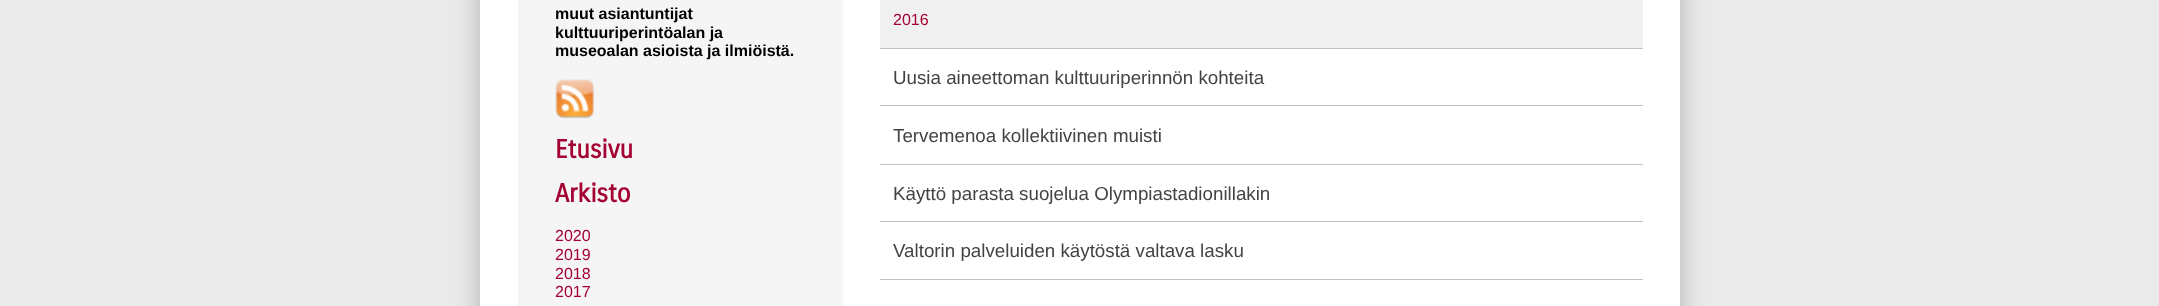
(async () => {
const canvas = document.querySelector("canvas")
canvas.width = 2159
canvas.height = 306
const c = canvas.getContext("2d")
c.miterLimit = 4
c.fontKerning = "normal"
function T(s,x,y){c.fillText(s,x,y)}
function R(x,y,w,h){c.fillRect(x,y,w,h)}
async function I(src,x,y,w,h){const img=new Image();img.src=src;await img.decode();c.drawImage(img,x,y,w,h)}
c.fillStyle="#eaeaea"
R(0,0,2159,306)
c.fillStyle="#00000040"
c.filter="blur(12.5px)"
c.beginPath()
c.rect(480,-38,1200,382)
c.fill()
c.filter="none"
c.fillStyle="#fff"
R(480,0,1200,306)
c.fillStyle="#f5f5f5"
R(518,0,325,306)
c.font="bold 16px Liberation Sans"
c.fillStyle="#000"
T("muut asiantuntijat",555,19)
T("kulttuuriperintöalan ja",555,38)
T("museoalan asioista ja ilmiöistä.",555,56)
await I("1.png",555,79,39,40)
c.font="bold 25.5px Carrois Gothic"
c.fillStyle="#a50234"
T("Etusivu",555,158)
T("Arkisto",555,202)
c.font="16px Liberation Sans"
T("2020",555,241)
T("2019",555,260)
T("2018",555,279)
T("2017",555,297)
c.fillStyle="#f0f0f0"
R(880,0,763,48)
c.fillStyle="#a50234"
T("2016",893,25)
c.fillStyle="#c0c0c0"
R(880,48,763,1)
c.font="18.75px Liberation Sans"
c.fillStyle="#434343"
T("Uusia aineettoman kulttuuriperinnön kohteita",893,84)
c.fillStyle="#c0c0c0"
R(880,105,763,1)
c.fillStyle="#434343"
T("Tervemenoa kollektiivinen muisti",893,142)
c.fillStyle="#c0c0c0"
R(880,164,763,1)
c.fillStyle="#434343"
T("Käyttö parasta suojelua Olympiastadionillakin",893,200)
c.fillStyle="#c0c0c0"
R(880,221,763,1)
c.fillStyle="#434343"
T("Valtorin palveluiden käytöstä valtava lasku",893,257)
c.fillStyle="#c0c0c0"
R(880,279,763,1)
})()
